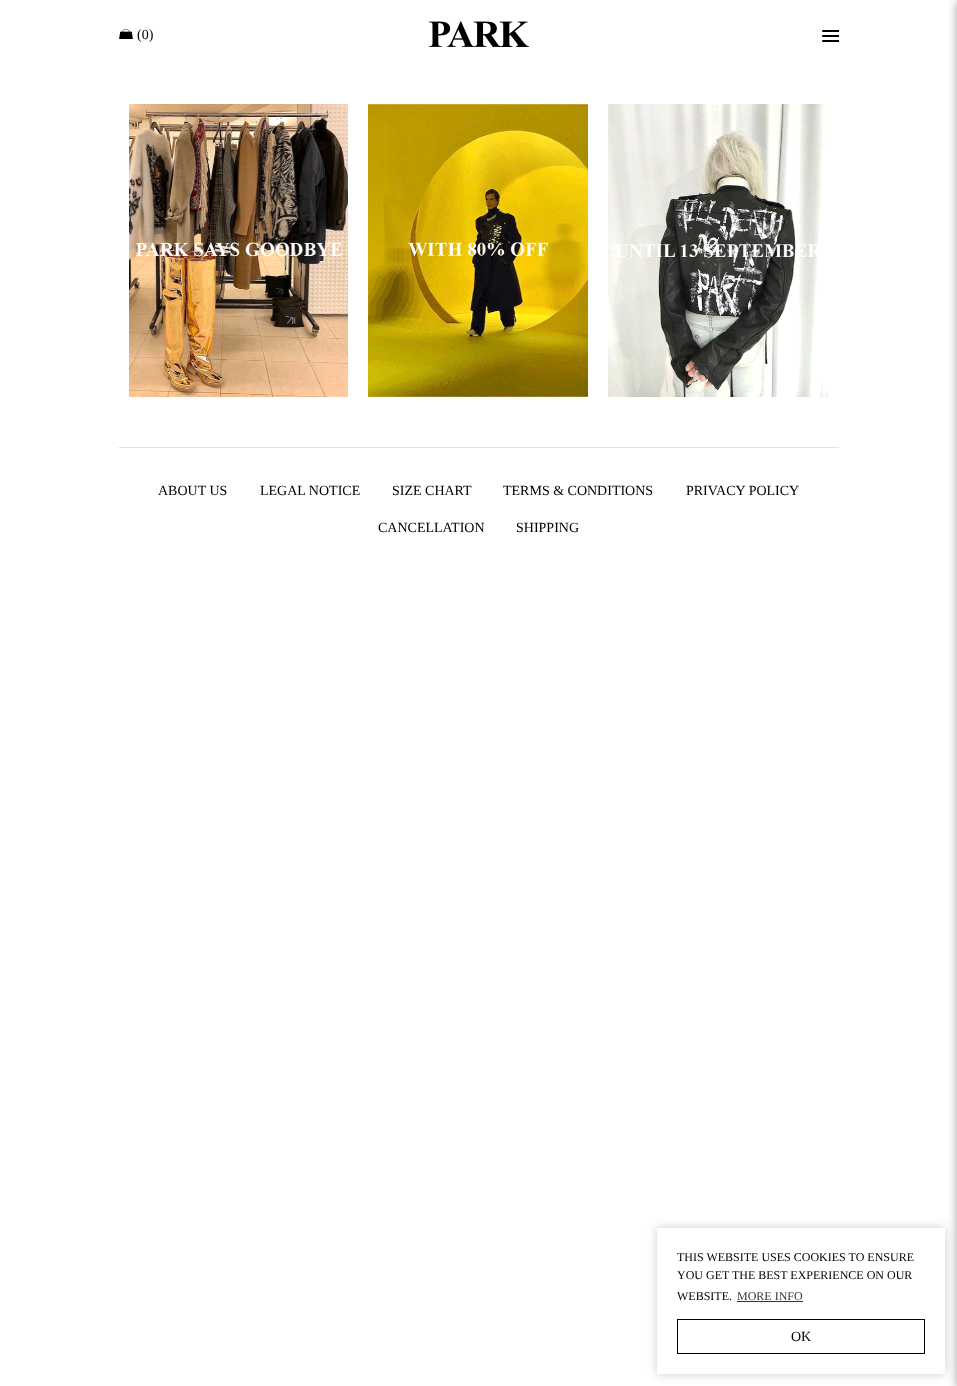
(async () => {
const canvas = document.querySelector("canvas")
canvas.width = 957
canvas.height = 1386
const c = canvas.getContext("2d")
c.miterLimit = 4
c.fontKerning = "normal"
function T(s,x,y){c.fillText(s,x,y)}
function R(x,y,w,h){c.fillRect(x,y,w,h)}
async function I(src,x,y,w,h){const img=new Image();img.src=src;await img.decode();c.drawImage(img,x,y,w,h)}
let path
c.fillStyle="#fff"
R(0,0,957,1386)
c.fillStyle="#00000033"
c.filter="blur(5px)"
c.beginPath()
c.rect(957,2,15,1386)
c.fill()
c.filter="none"
await I("1.png",119,29,14,10)
c.font="14px Liberation Serif"
c.fillStyle="#000"
T("(0)",137,39)
await I("2.png",429,21,100,26)
await I("3.png",822,30,17,12)
c.fillStyle="#00000033"
c.filter="blur(5px)"
c.beginPath()
c.rect(957,2,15,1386)
c.fill()
c.filter="none"
await I("4.png",129,104,219,293)
await I("5.png",368,104,220,293)
await I("6.png",608,104,220,293)
c.fillStyle="#dee2e6"
R(119,447,720,1)
c.fillStyle="#000"
T("ABOUT US",158,495)
T("LEGAL NOTICE",260,495)
T("SIZE CHART",392,495)
T("TERMS & CONDITIONS",503,495)
T("PRIVACY POLICY",686,495)
T("CANCELLATION",378,532)
T("SHIPPING",516,532)
c.save()
path = new Path2D("M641 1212h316v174h-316zm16 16h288v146h-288z")
c.clip(path,"evenodd")
c.fillStyle="#00000033"
c.filter="blur(5px)"
c.beginPath()
c.rect(657,1228,288,146)
c.fill()
c.filter="none"
c.restore()
c.font="12px Liberation Serif"
T("THIS WEBSITE USES COOKIES TO ENSURE",677,1261)
T("YOU GET THE BEST EXPERIENCE ON OUR",677,1279)
T("WEBSITE.",677,1300)
c.fillStyle="#333"
T("MORE INFO",737,1300)
R(737,1301,66,1)
c.strokeStyle="#000"
c.strokeRect(677.5,1319.5,247,34)
c.font="14px Liberation Serif"
c.fillStyle="#000"
T("OK",791,1341)
})()
